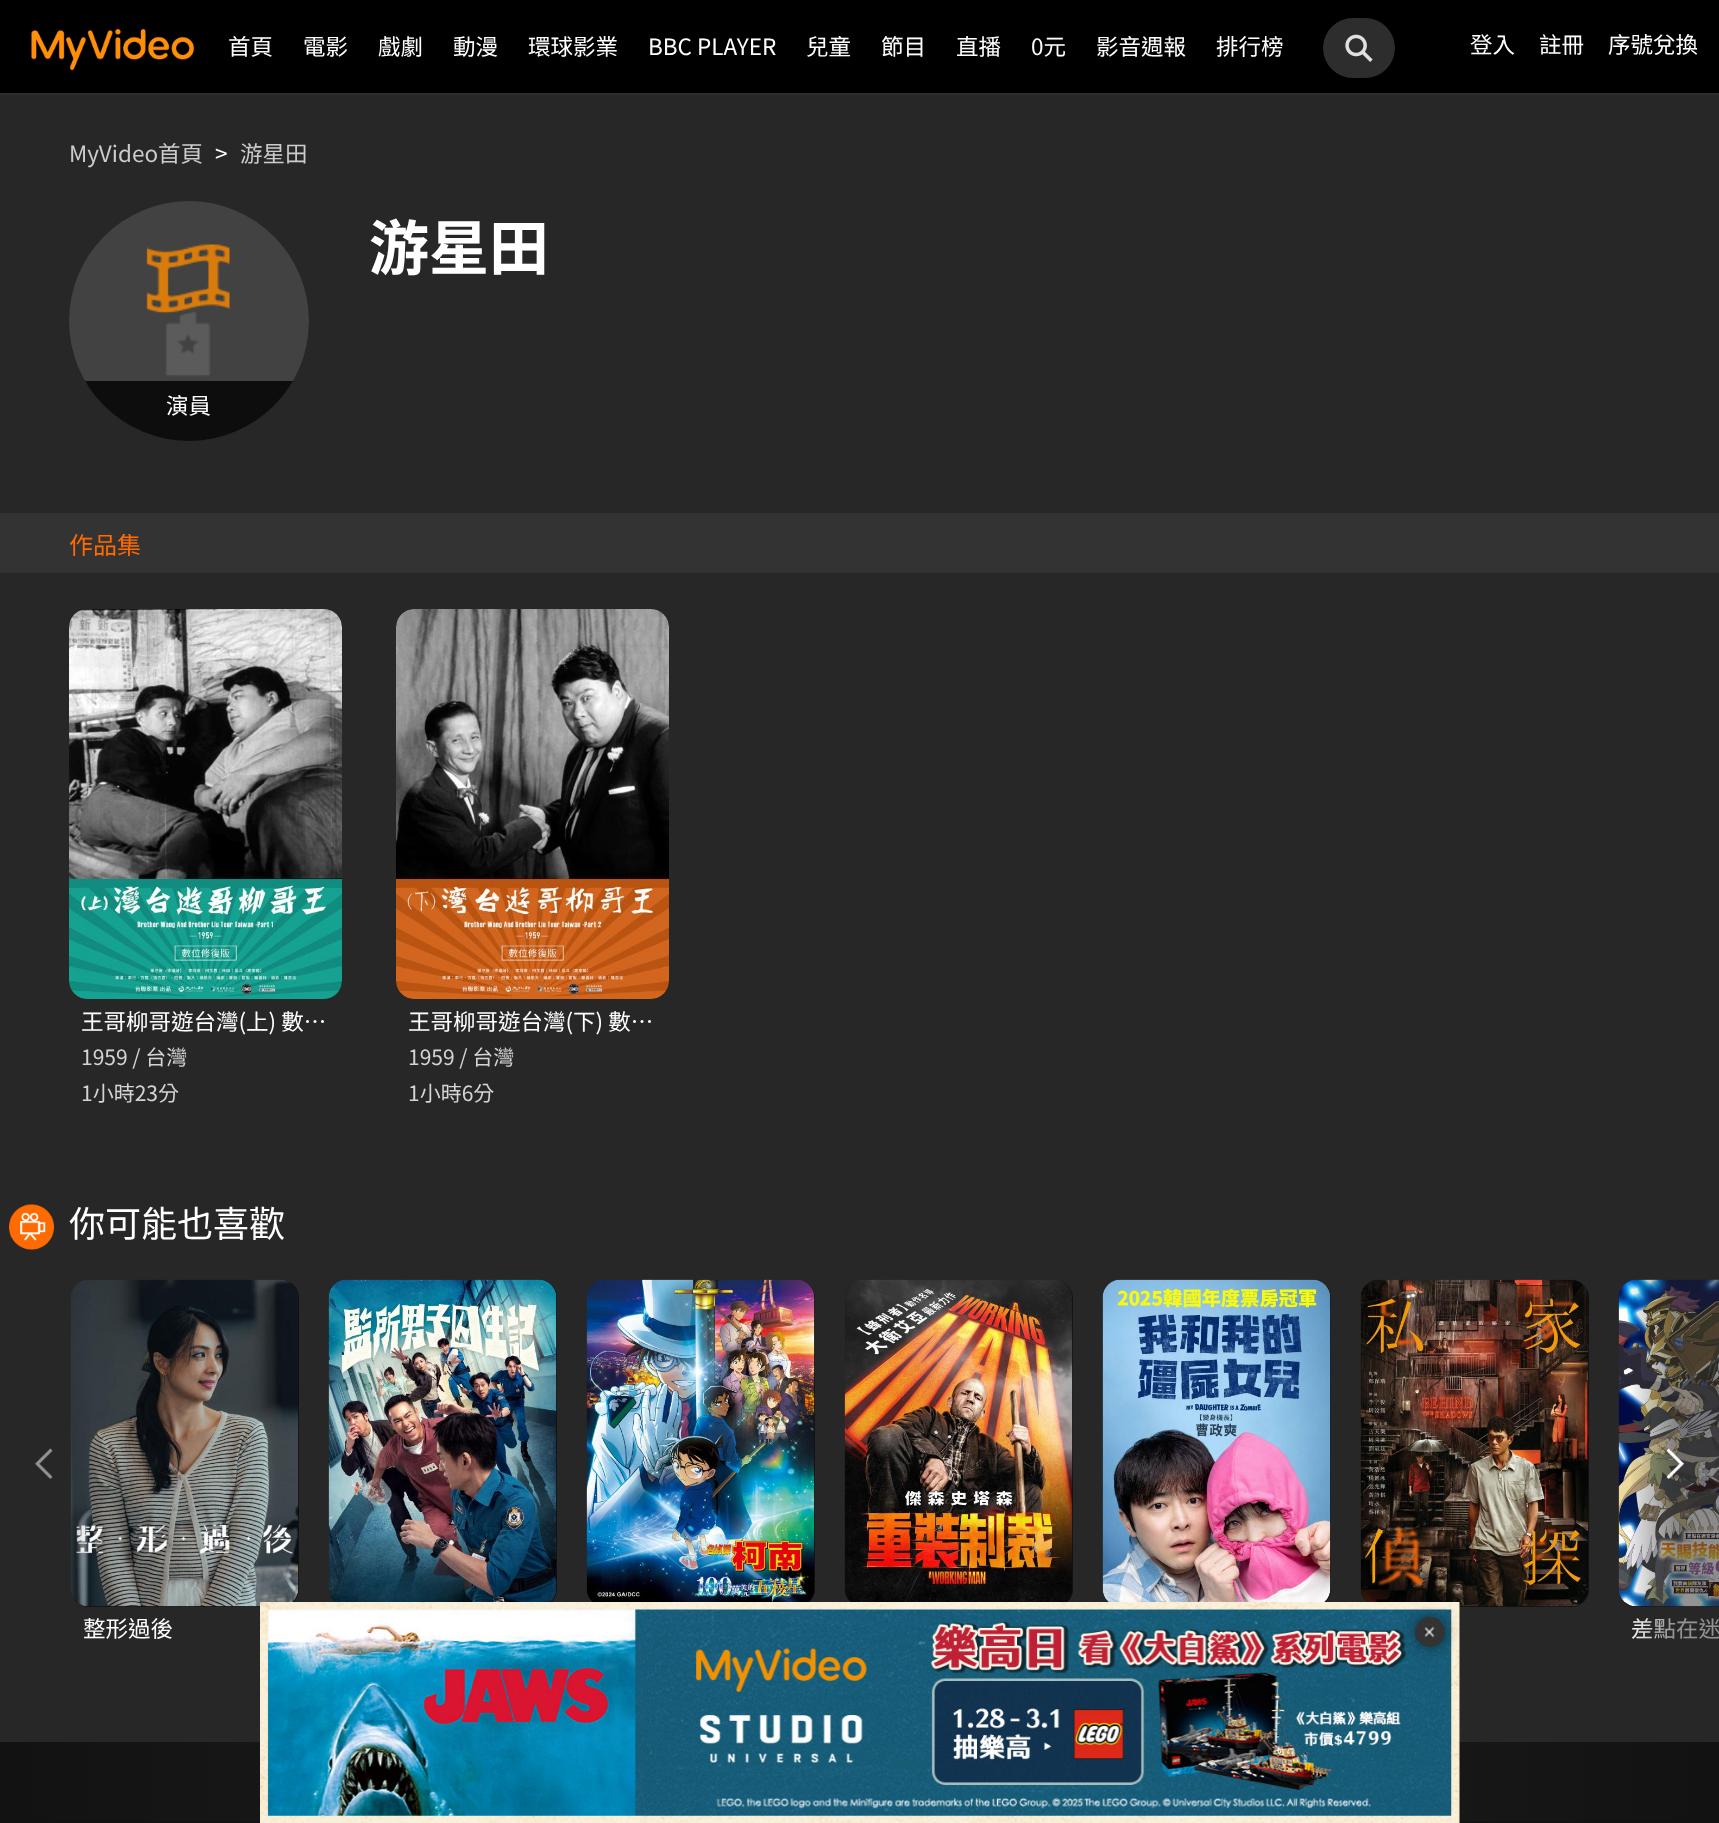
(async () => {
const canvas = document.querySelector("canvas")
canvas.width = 1719
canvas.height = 1823
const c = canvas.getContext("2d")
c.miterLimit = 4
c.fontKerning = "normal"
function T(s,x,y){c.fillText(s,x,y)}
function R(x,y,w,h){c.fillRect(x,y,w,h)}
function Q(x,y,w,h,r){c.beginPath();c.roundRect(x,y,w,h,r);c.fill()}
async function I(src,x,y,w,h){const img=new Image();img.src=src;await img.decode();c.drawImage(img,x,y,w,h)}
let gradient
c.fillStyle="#272727"
R(0,0,1719,1823)
c.fillStyle="#000"
R(0,0,1719,93)
c.fillStyle="#2d2d2d"
R(0,93,1719,2)
await I("1.png",31,29,164,41)
c.font="22.5px Noto Sans TC"
c.fillStyle="#fff"
T("首頁",228,55)
T("電影",303,55)
T("戲劇",378,55)
T("動漫",453,55)
T("環球影業",528,55)
T("BBC PLAYER",648,55)
T("兒童",806,55)
T("節目",881,55)
T("直播",956,55)
T("0元",1031,55)
T("影音週報",1096,55)
T("排行榜",1216,55)
c.fillStyle="#2d2d2d"
Q(1323,18,72,60,30)
await I("2.png",1345,34,28,28)
c.fillStyle="#fff"
T("登入",1470,53)
T("註冊",1539,53)
T("序號兌換",1608,53)
c.fillStyle="#121212"
Q(329,1280,228,327,18)
Q(587,1280,228,327,18)
Q(845,1280,228,327,18)
Q(1103,1280,228,327,18)
Q(1361,1280,228,327,18)
await I("16.png",1360,1279,229,328)
Q(71,1280,228,327,18)
await I("17.png",70,1279,229,328)
R(0,1821,1719,2)
gradient = c.createLinearGradient(0,1781,1719,1781)
gradient.addColorStop(0,"#121212")
gradient.addColorStop(.52,"#212121")
gradient.addColorStop(1,"#121212")
c.fillStyle = gradient
R(0,1742,1719,79)
await I("4.png",260,1602,1200,221)
c.fillStyle="#00000080"
c.filter="blur(7.5px)"
c.beginPath()
c.roundRect(1415,1617,30,30,15)
c.fill()
c.filter="none"
c.fillStyle="#333"
c.beginPath()
c.arc(1430,1632,15,0,7)
c.fill()
await I("3.png",1424,1626,11,12)
c.fillStyle="#ccc"
T("MyVideo首頁",69,162)
c.fillStyle="#fff"
T(">",215,162)
c.fillStyle="#ccc"
T("游星田",240,162)
c.font="bold 60px Noto Sans TC"
c.fillStyle="#fff"
T("游星田",369,270)
await I("5.png",69,201,240,240)
await I("6.png",69,201,240,240)
c.save()
c.beginPath()
c.roundRect(69,201,240,240,120)
c.clip()
c.fillStyle="#000000cc"
R(85,381,208,60)
c.restore()
c.font="22.5px Noto Sans TC"
T("演員",166,414)
c.fillStyle="#333"
R(0,513,1719,60)
c.font="24px Noto Sans TC"
c.fillStyle="#ff6b00"
T("作品集",69,554)
await I("7.png",69,609,273,390)
c.font="22.5px Noto Sans TC"
c.fillStyle="#fff"
T("王哥柳哥遊台灣(上) 數…",81,1030)
c.font="21px Noto Sans TC"
c.fillStyle="#d4d4d4"
T("1959 / 台灣",81,1065)
T("1小時23分",81,1101)
await I("8.png",396,609,273,390)
c.font="22.5px Noto Sans TC"
c.fillStyle="#fff"
T("王哥柳哥遊台灣(下) 數…",408,1030)
c.font="21px Noto Sans TC"
c.fillStyle="#d4d4d4"
T("1959 / 台灣",408,1065)
T("1小時6分",408,1101)
await I("9.png",9,1204,45,46)
c.font="36px Noto Sans TC"
c.fillStyle="#fff"
T("你可能也喜歡",69,1237)
c.font="22.5px Noto Sans TC"
T("整形過後",83,1637)
gradient = c.createLinearGradient(0,1463,90,1463)
gradient.addColorStop(.5,"#27272780")
gradient.addColorStop(1,"#27272700")
c.fillStyle = gradient
R(71,1283,17,356)
await I("10.png",34,1448,19,31)
c.fillStyle="#121212"
c.beginPath()
c.roundRect(1619,1280,100,327,[18,0,0,18])
c.fill()
await I("18.png",1618,1279,101,328)
c.fillStyle="#fff"
T("差點在迷",1631,1637)
gradient = c.createLinearGradient(1629,1463,1719,1463)
gradient.addColorStop(0,"#27272700")
gradient.addColorStop(.5,"#27272780")
c.fillStyle = gradient
R(1631,1280,88,359)
await I("11.png",1666,1448,19,31)
await I("12.png",328,1279,229,323)
await I("13.png",586,1279,229,323)
await I("14.png",844,1279,229,323)
await I("15.png",1102,1279,229,323)
})()
